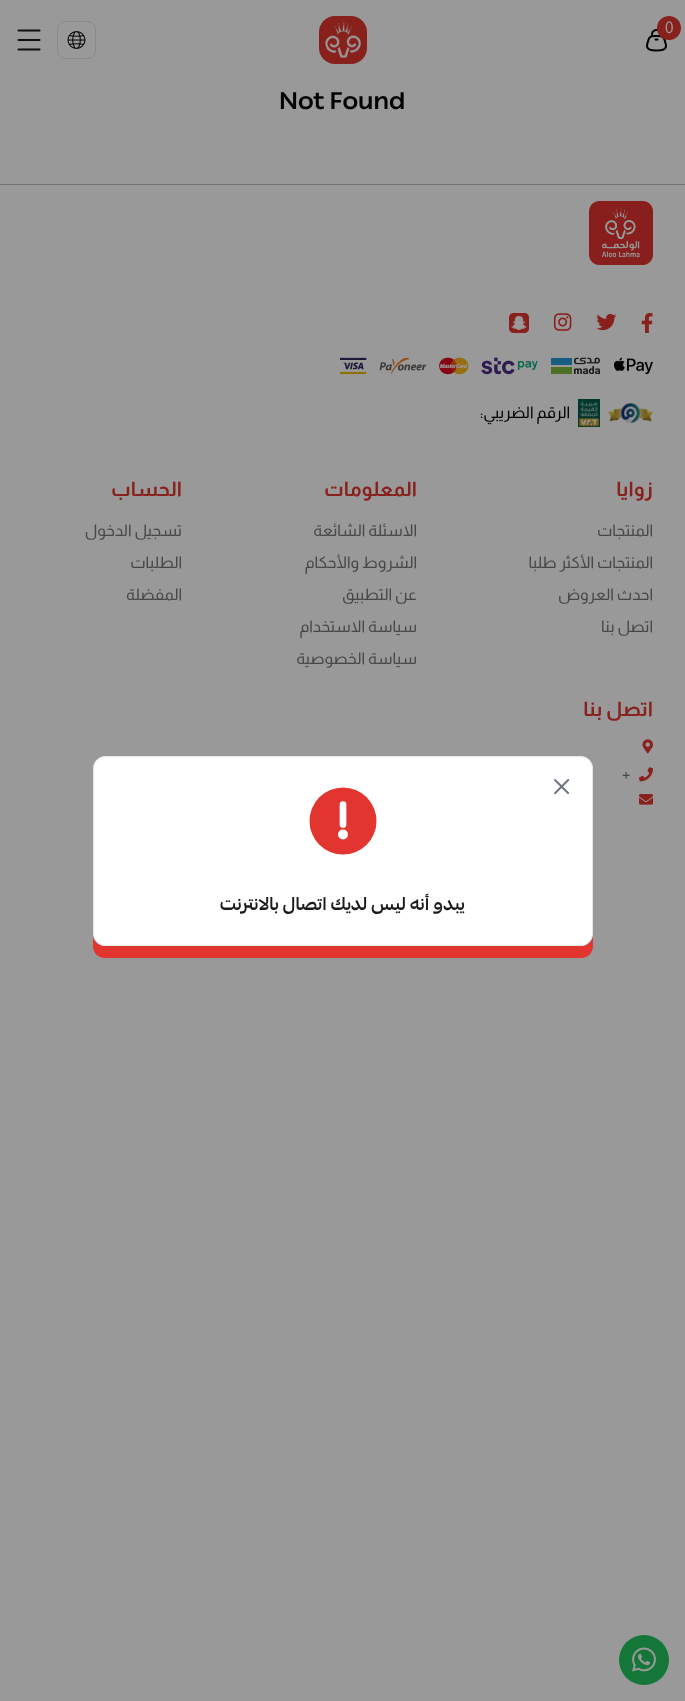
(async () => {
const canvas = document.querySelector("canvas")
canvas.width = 685
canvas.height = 1701
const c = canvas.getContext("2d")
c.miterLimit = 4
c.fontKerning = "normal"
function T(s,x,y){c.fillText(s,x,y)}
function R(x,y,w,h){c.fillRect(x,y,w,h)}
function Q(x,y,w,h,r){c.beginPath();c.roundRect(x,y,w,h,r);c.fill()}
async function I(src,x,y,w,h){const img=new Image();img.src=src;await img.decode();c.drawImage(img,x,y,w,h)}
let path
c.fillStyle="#999"
R(0,0,685,1701)
await I("1.png",646,29,21,23)
c.fillStyle="#88201c"
c.beginPath()
c.arc(669,28,12,0,7)
c.fill()
c.font="16px Almarai"
c.fillStyle="#999"
T("0",665,33)
c.fillStyle="#88201c"
Q(319,16,48,48,16)
await I("2.png",325,22,36,36)
c.beginPath()
c.roundRect(57.5,21.5,38,37,7.5)
c.strokeStyle="#898b8d"
c.stroke()
await I("3.png",67,31,19,18)
path = new Path2D("M18.5 30.5h21m-21 9.5h21m-21 9.5h21")
c.strokeStyle="#101010"
c.lineWidth=2
c.lineCap="round"
c.lineJoin="round"
c.stroke(path)
c.font="bold 24px 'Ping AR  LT'"
c.fillStyle="#000"
T("Not Found",279,109)
c.fillStyle="#717171"
R(0,184,685,1)
await I("4.png",589,201,64,64)
await I("5.png",641,313,12,20)
await I("6.png",596,313,21,18)
await I("7.png",553,313,19,18)
await I("8.png",509,313,20,20)
await I("9.png",614,357,39,18)
await I("10.png",551,357,49,18)
await I("11.png",481,357,57,18)
await I("12.png",439,357,30,18)
await I("13.png",379,357,48,17)
await I("14.png",340,357,27,18)
await I("15.png",608,403,45,20)
await I("16.png",578,399,22,28)
c.direction="rtl"
c.font="16px Almarai"
c.fillStyle="#000"
T("الرقم الضريبي:",570,418)
c.font="bold 20px Almarai"
c.fillStyle="#88201c"
T("زوايا",653,496)
c.font="16px Almarai"
c.fillStyle="#474747"
T("المنتجات",653,536)
T("المنتجات الأكثر طلبا",653,568)
T("احدث العروض",653,600)
T("اتصل بنا",653,632)
c.font="bold 20px Almarai"
c.fillStyle="#88201c"
T("المعلومات",417,496)
c.font="16px Almarai"
c.fillStyle="#474747"
T("الاسئلة الشائعة",417,536)
T("الشروط والأحكام",417,568)
T("عن التطبيق",417,600)
T("سياسة الاستخدام",417,632)
T("سياسة الخصوصية",417,664)
c.font="bold 20px Almarai"
c.fillStyle="#88201c"
T("الحساب",182,496)
c.font="16px Almarai"
c.fillStyle="#474747"
T("تسجيل الدخول",182,536)
T("الطلبات",182,568)
T("المفضلة",182,600)
c.font="bold 20px Almarai"
c.fillStyle="#88201c"
T("اتصل بنا",653,716)
await I("17.png",642,739,11,15)
await I("18.png",639,767,14,15)
c.direction="ltr"
c.font="16px Almarai"
c.fillStyle="#474747"
T("+",622,779)
await I("19.png",639,794,14,11)
c.fillStyle="#147638"
c.beginPath()
c.arc(644,1660,25,0,7)
c.fill()
await I("20.png",632,1647,24,25)
c.fillStyle="#e3352f"
path = new Path2D("M93 934v12c0 7 5 12 12 12h476c7 0 12-5 12-12v-12c0 7-5 12-12 12h-476c-7 0-12-5-12-12z")
c.fill(path)
c.fillStyle="#fff"
c.beginPath()
c.roundRect(93.5,756.5,499,189,11.5)
c.fill()
c.strokeStyle="#e2e8f0"
c.lineWidth=1
c.lineJoin="miter"
c.stroke()
await I("21.png",554,779,16,16)
c.fillStyle="#e3352f"
c.beginPath()
c.arc(343,821,33.5,0,7)
c.fill()
path = new Path2D("M343 804.5v20")
c.strokeStyle="#fff"
c.lineWidth=6.7
c.stroke(path)
c.fillStyle="#fff"
c.beginPath()
c.arc(343,834.5,5,0,7)
c.fill()
c.direction="rtl"
c.font="bold 18px 'Ping AR  LT'"
c.fillStyle="#1a1a1a"
T("يبدو أنه ليس لديك اتصال بالانترنت",465,910)
})()
